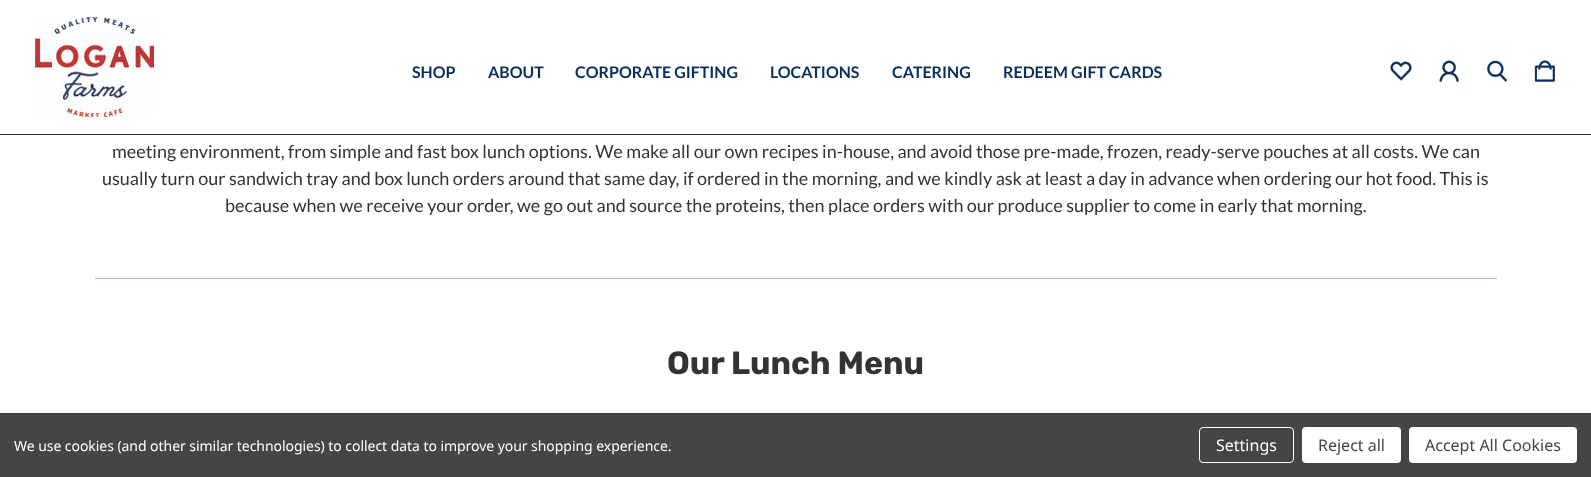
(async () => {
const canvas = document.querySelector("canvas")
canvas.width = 1591
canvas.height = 477
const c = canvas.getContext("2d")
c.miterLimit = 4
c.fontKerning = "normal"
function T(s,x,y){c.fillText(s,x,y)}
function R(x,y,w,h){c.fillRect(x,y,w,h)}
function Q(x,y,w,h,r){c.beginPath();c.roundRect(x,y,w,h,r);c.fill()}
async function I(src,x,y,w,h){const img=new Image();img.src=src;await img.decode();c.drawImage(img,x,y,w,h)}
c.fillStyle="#fff"
R(0,0,1591,477)
c.fillStyle="#333"
R(0,134,1591,1)
await I("1.png",35,17,119,100)
c.font="bold 16px Lato"
c.fillStyle="#0a2e5e"
T("SHOP",412,78)
T("ABOUT",488,78)
T("CORPORATE GIFTING",575,78)
T("LOCATIONS",770,78)
T("CATERING",892,78)
T("REDEEM GIFT CARDS",1003,78)
await I("2.png",1390,61,22,20)
await I("3.png",1439,60,20,22)
await I("4.png",1487,60,20,22)
await I("5.png",1534,60,21,22)
c.font="18px Lato"
c.fillStyle="#333"
T("meeting environment, from simple and fast box lunch options. We make all our own recipes in-house, and avoid those pre-made, frozen, ready-serve pouches at all costs. We can",112,158)
T("usually turn our sandwich tray and box lunch orders around that same day, if ordered in the morning, and we kindly ask at least a day in advance when ordering our hot food. This is",102,185)
T("because when we receive your order, we go out and source the proteins, then place orders with our produce supplier to come in early that morning.",225,212)
c.fillStyle="#b4bad1"
R(95,278,1402,1)
c.font="300 32px Rubik"
c.fillStyle="#333"
T("Our Lunch Menu",667,374)
c.fillStyle="#454545"
R(0,413,1591,64)
c.letterSpacing="-0.05px"
c.font="14px Noto Sans"
c.fillStyle="#fff"
T("We use cookies (and other similar technologies) to collect data to improve your shopping experience.",14,451)
c.beginPath()
c.roundRect(1199.5,427.5,94,35,3.5)
c.strokeStyle="#fff"
c.stroke()
c.letterSpacing="0px"
c.font="16px Noto Sans"
T("Settings",1216,451)
Q(1302,427,99,36,4)
c.fillStyle="#454545"
T("Reject all",1318,451)
c.fillStyle="#fff"
Q(1409,427,168,36,4)
c.fillStyle="#454545"
T("Accept All Cookies",1425,451)
})()
